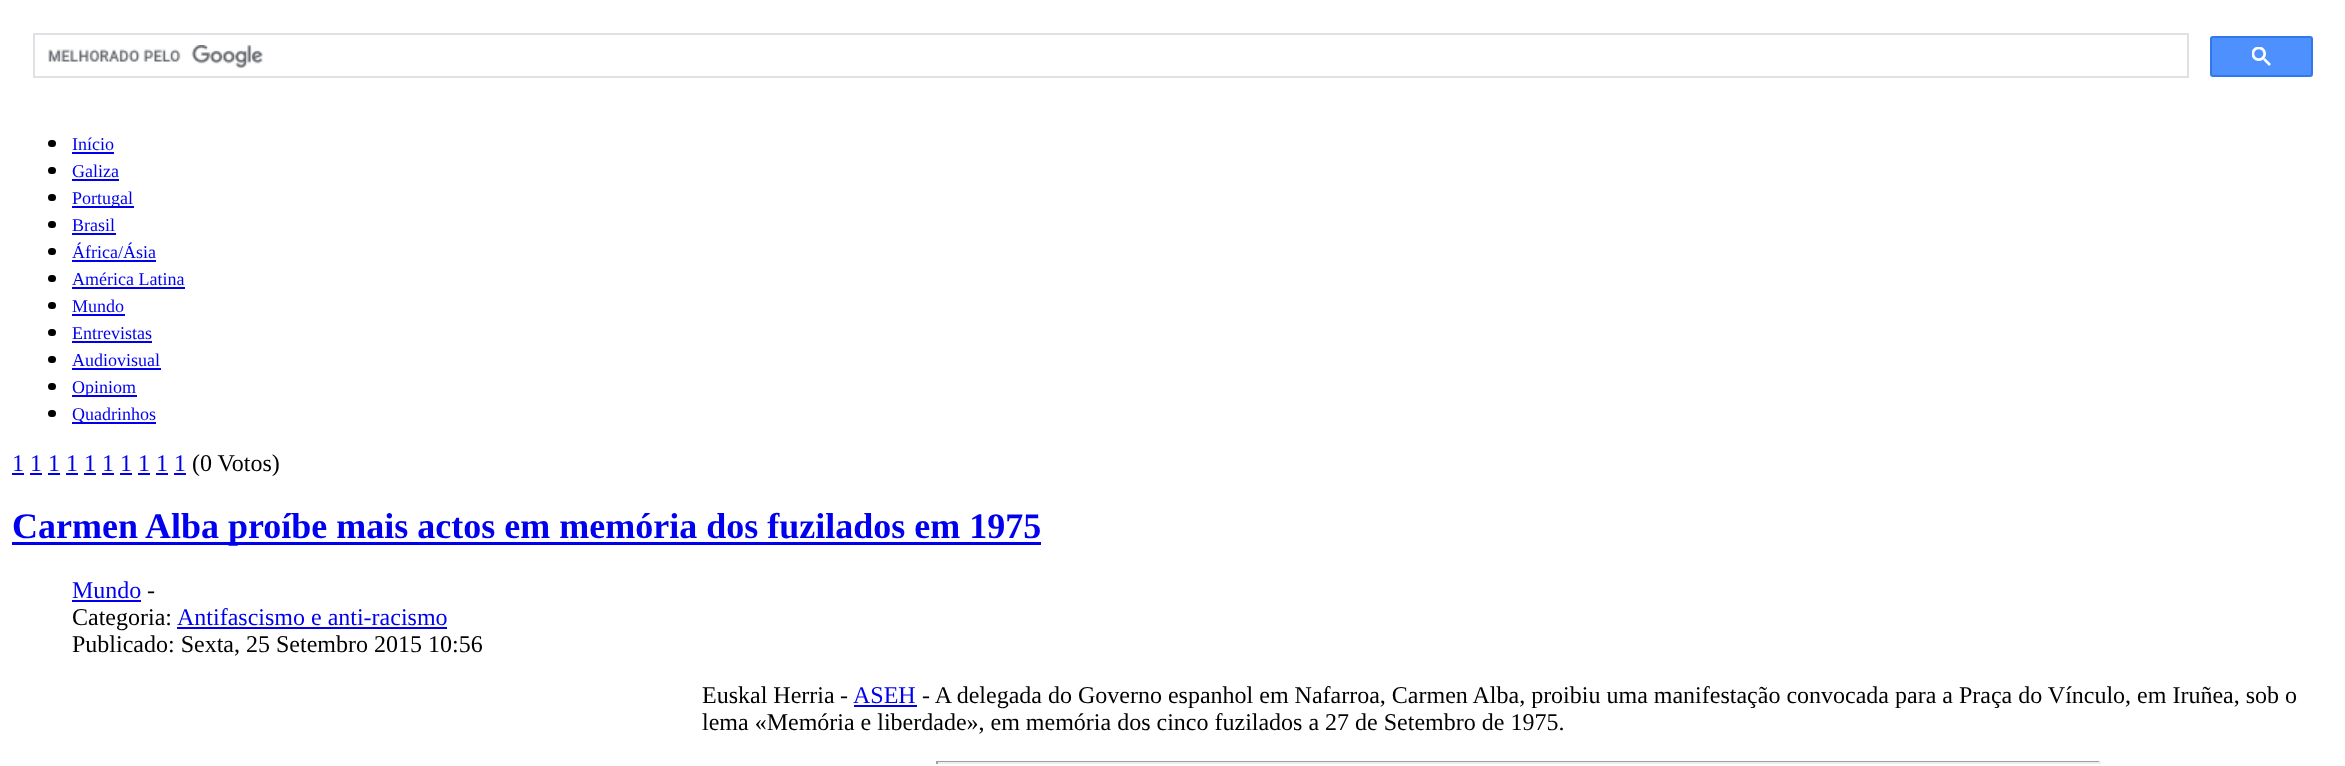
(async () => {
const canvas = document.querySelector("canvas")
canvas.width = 2345
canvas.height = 766
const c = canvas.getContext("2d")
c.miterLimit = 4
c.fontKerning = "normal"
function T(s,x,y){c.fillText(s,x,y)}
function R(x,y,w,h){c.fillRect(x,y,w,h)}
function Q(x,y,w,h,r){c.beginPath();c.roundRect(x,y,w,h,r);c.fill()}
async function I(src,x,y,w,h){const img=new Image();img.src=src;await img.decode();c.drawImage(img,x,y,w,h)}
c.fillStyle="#fff"
R(0,0,2345,766)
c.strokeStyle="#dfe1e5"
c.lineWidth=2
c.strokeRect(34,34,2154,43)
await I("1.png",48,45,215,23)
c.fillStyle="#4d90fe"
c.beginPath()
c.roundRect(2211,37,101,39,2)
c.fill()
c.strokeStyle="#3079ed"
c.stroke()
await I("2.png",2252,47,19,19)
c.fillStyle="#000"
Q(48,140,8,7,3.5)
c.font="18px Liberation Serif"
c.fillStyle="#00e"
T("Início",72,150)
R(72,152,42,2)
c.fillStyle="#000"
Q(48,167,8,7,3.5)
c.fillStyle="#00e"
T("Galiza",72,177)
R(72,179,47,2)
c.fillStyle="#000"
Q(48,194,8,7,3.5)
c.fillStyle="#00e"
R(72,206,62,2)
T("Portugal",72,204)
c.fillStyle="#000"
Q(48,221,8,7,3.5)
c.fillStyle="#00e"
T("Brasil",72,231)
R(72,233,44,2)
c.fillStyle="#000"
Q(48,248,8,7,3.5)
c.fillStyle="#00e"
T("África/Ásia",72,258)
R(72,260,84,2)
c.fillStyle="#000"
Q(48,275,8,7,3.5)
c.fillStyle="#00e"
T("América Latina",72,285)
R(72,287,113,2)
c.fillStyle="#000"
Q(48,302,8,7,3.5)
c.fillStyle="#00e"
T("Mundo",72,312)
R(72,314,53,2)
c.fillStyle="#000"
Q(48,329,8,7,3.5)
c.fillStyle="#00e"
T("Entrevistas",72,339)
R(72,341,80,2)
c.fillStyle="#000"
Q(48,356,8,7,3.5)
c.fillStyle="#00e"
T("Audiovisual",72,366)
R(72,368,89,2)
c.fillStyle="#000"
Q(48,383,8,7,3.5)
c.fillStyle="#00e"
R(72,395,65,2)
T("Opiniom",72,393)
c.fillStyle="#000"
Q(48,410,8,7,3.5)
c.fillStyle="#00e"
R(72,422,84,2)
T("Quadrinhos",72,420)
c.font="24px Liberation Serif"
T("1 1 1 1 1 1 1 1 1 1",12,471)
R(12,473,12,2)
R(30,473,12,2)
R(48,473,12,2)
R(66,473,12,2)
R(84,473,12,2)
R(102,473,12,2)
R(120,473,12,2)
R(138,473,12,2)
R(156,473,12,2)
R(174,473,12,2)
c.fillStyle="#000"
T("(0 Votos)",192,471)
c.fillStyle="#00e"
R(12,542,1029,3)
c.font="bold 36px Liberation Serif"
T("Carmen Alba proíbe mais actos em memória dos fuzilados em 1975",12,538)
c.font="24px Liberation Serif"
T("Mundo",72,598)
R(72,600,69,2)
c.fillStyle="#000"
T("-",147,598)
T("Categoria:",72,625)
c.fillStyle="#00e"
T("Antifascismo e anti-racismo",177,625)
R(177,627,270,2)
c.fillStyle="#000"
T("Publicado: Sexta, 25 Setembro 2015 10:56",72,652)
T("Euskal Herria",702,703)
T("-",840,703)
c.fillStyle="#00e"
T("ASEH",853,703)
R(854,705,63,2)
c.fillStyle="#000"
T("- A delegada do Governo espanhol em Nafarroa, Carmen Alba, proibiu uma manifestação convocada para a Praça do Vínculo, em Iruñea, sob o",922,703)
T("lema «Memória e liberdade», em memória dos cinco fuzilados a 27 de Setembro de 1975.",702,730)
c.fillStyle="#9f9f9f"
R(936,761,1164,1)
c.fillStyle="#eee"
R(2099,761,2,3)
R(936,762,1164,2)
c.fillStyle="#9f9f9f"
R(936,761,2,3)
})()
